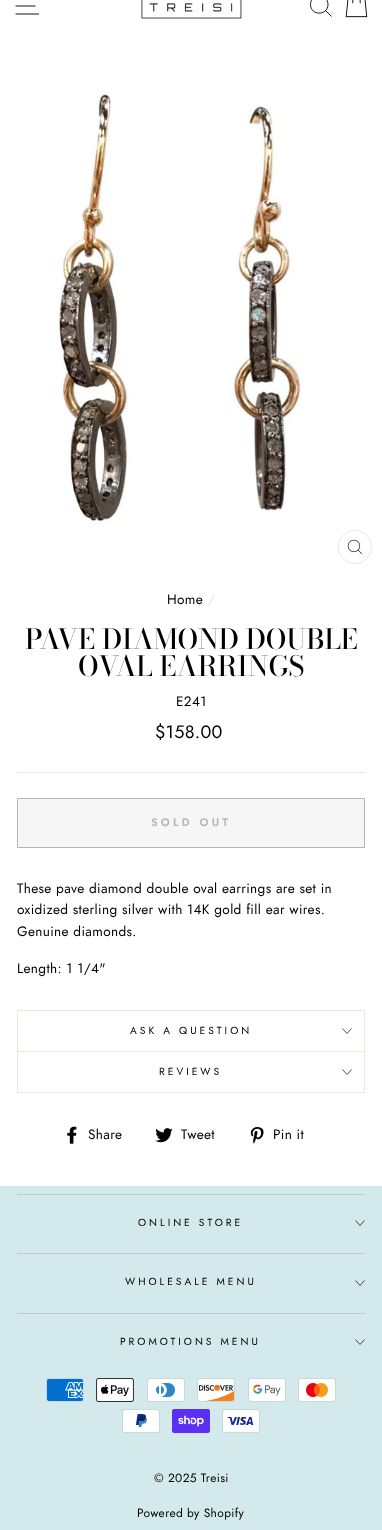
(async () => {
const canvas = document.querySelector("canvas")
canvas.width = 382
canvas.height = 1530
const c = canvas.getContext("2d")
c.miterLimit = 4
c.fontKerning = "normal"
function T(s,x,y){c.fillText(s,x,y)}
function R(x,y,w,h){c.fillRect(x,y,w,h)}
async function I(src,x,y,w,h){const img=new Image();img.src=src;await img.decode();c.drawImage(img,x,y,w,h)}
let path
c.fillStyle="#fff"
R(0,0,382,1530)
path = new Path2D("M15.5-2h23.5m-23.5 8h20m-20 8h23.5")
c.strokeStyle="#000"
c.lineWidth=0.9
c.stroke(path)
await I("1.png",141,0,103,21)
path = new Path2D("M328 4.5c0 11.5-17.5 11.5-17.5 0c0-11.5 17.5-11.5 17.5 0zm3.5 12l-6-6")
c.stroke(path)
await I("2.png",345,0,23,18)
await I("3.png",57,94,244,428)
c.beginPath()
c.arc(355,547,16.5,0,7)
c.strokeStyle="#e8e8e1"
c.lineWidth=1
c.stroke()
await I("4.png",347,539,15,15)
c.letterSpacing="0.35px"
c.font="13.6px Jost"
c.fillStyle="#000"
T("Home",167,604)
c.fillStyle="#e8e8e1"
T("/",208,604)
c.letterSpacing="0px"
c.font="500 27.75px Bodoni Moda"
c.fillStyle="#000"
T("PAVE DIAMOND DOUBLE",25,649)
T("OVAL EARRINGS",78,676)
c.letterSpacing="0.35px"
c.font="13.6px Jost"
T("E241",176,706)
c.font="18px Jost"
T("$158.00",155,738)
c.fillStyle="#e8e8e1"
R(17,772,348,1)
c.fillStyle="#f6f6f6"
c.beginPath()
c.rect(17.5,798.5,347,49)
c.fill()
c.strokeStyle="#b6b6b6"
c.stroke()
c.letterSpacing="3.25px"
c.font="600 11px Jost"
c.fillStyle="#b6b6b6"
T("SOLD OUT",151,826)
c.letterSpacing="0.35px"
c.font="13.6px Jost"
c.fillStyle="#000"
T("These pave diamond double oval earrings are set in",17,893)
T("oxidized sterling silver with 14K gold fill ear wires.",17,914)
T("Genuine diamonds.",17,936)
T("Length: 1 1/4\"",17,973)
c.fillStyle="#e8e8e1"
R(17,1092,348,1)
R(17,1010,348,1)
R(364,1010,1,41)
R(17,1010,1,41)
c.letterSpacing="3px"
c.font="10.25px Jost"
c.fillStyle="#000"
T("ASK A QUESTION",130,1034)
path = new Path2D("M342.5 1028.5l4.5 5l4.5-5")
c.strokeStyle="#000"
c.lineWidth=0.7
c.stroke(path)
c.fillStyle="#e8e8e1"
R(17,1051,348,1)
R(364,1051,1,41)
R(17,1051,1,41)
c.fillStyle="#000"
T("REVIEWS",159,1075)
path = new Path2D("M342.5 1069.5l4.5 5l4.5-5")
c.stroke(path)
await I("5.png",67,1126,10,18)
c.letterSpacing="0.35px"
c.font="13.6px Jost"
T("Share",88,1139)
await I("6.png",155,1128,18,15)
T("Tweet",181,1139)
await I("7.png",250,1127,14,17)
T("Pin it",273,1139)
c.fillStyle="#d4e9eb"
R(0,1186,382,344)
c.fillStyle="#bbcdcf"
R(17,1194,348,1)
c.letterSpacing="3px"
c.font="10.25px Jost"
c.fillStyle="#000"
T("ONLINE STORE",138,1226)
path = new Path2D("M355.5 1220.5l4.5 5l4.5-5")
c.stroke(path)
c.fillStyle="#bbcdcf"
R(17,1253,348,1)
c.fillStyle="#000"
T("WHOLESALE MENU",125,1285)
path = new Path2D("M355.5 1280.5l4.5 5l4.5-5")
c.stroke(path)
c.fillStyle="#bbcdcf"
R(17,1313,348,1)
c.fillStyle="#000"
T("PROMOTIONS MENU",120,1345)
path = new Path2D("M355.5 1339.5l4.5 5l4.5-5")
c.stroke(path)
await I("8.png",46,1378,38,24)
await I("9.png",96,1378,38,24)
await I("10.png",147,1378,38,24)
await I("11.png",197,1378,38,24)
await I("12.png",248,1378,38,24)
await I("13.png",298,1378,38,24)
await I("14.png",122,1409,38,24)
await I("15.png",172,1409,38,24)
await I("16.png",222,1409,38,24)
c.letterSpacing="0.35px"
c.font="12px Jost"
T("© 2025 Treisi",154,1482)
T("Powered by Shopify",137,1517)
})()
